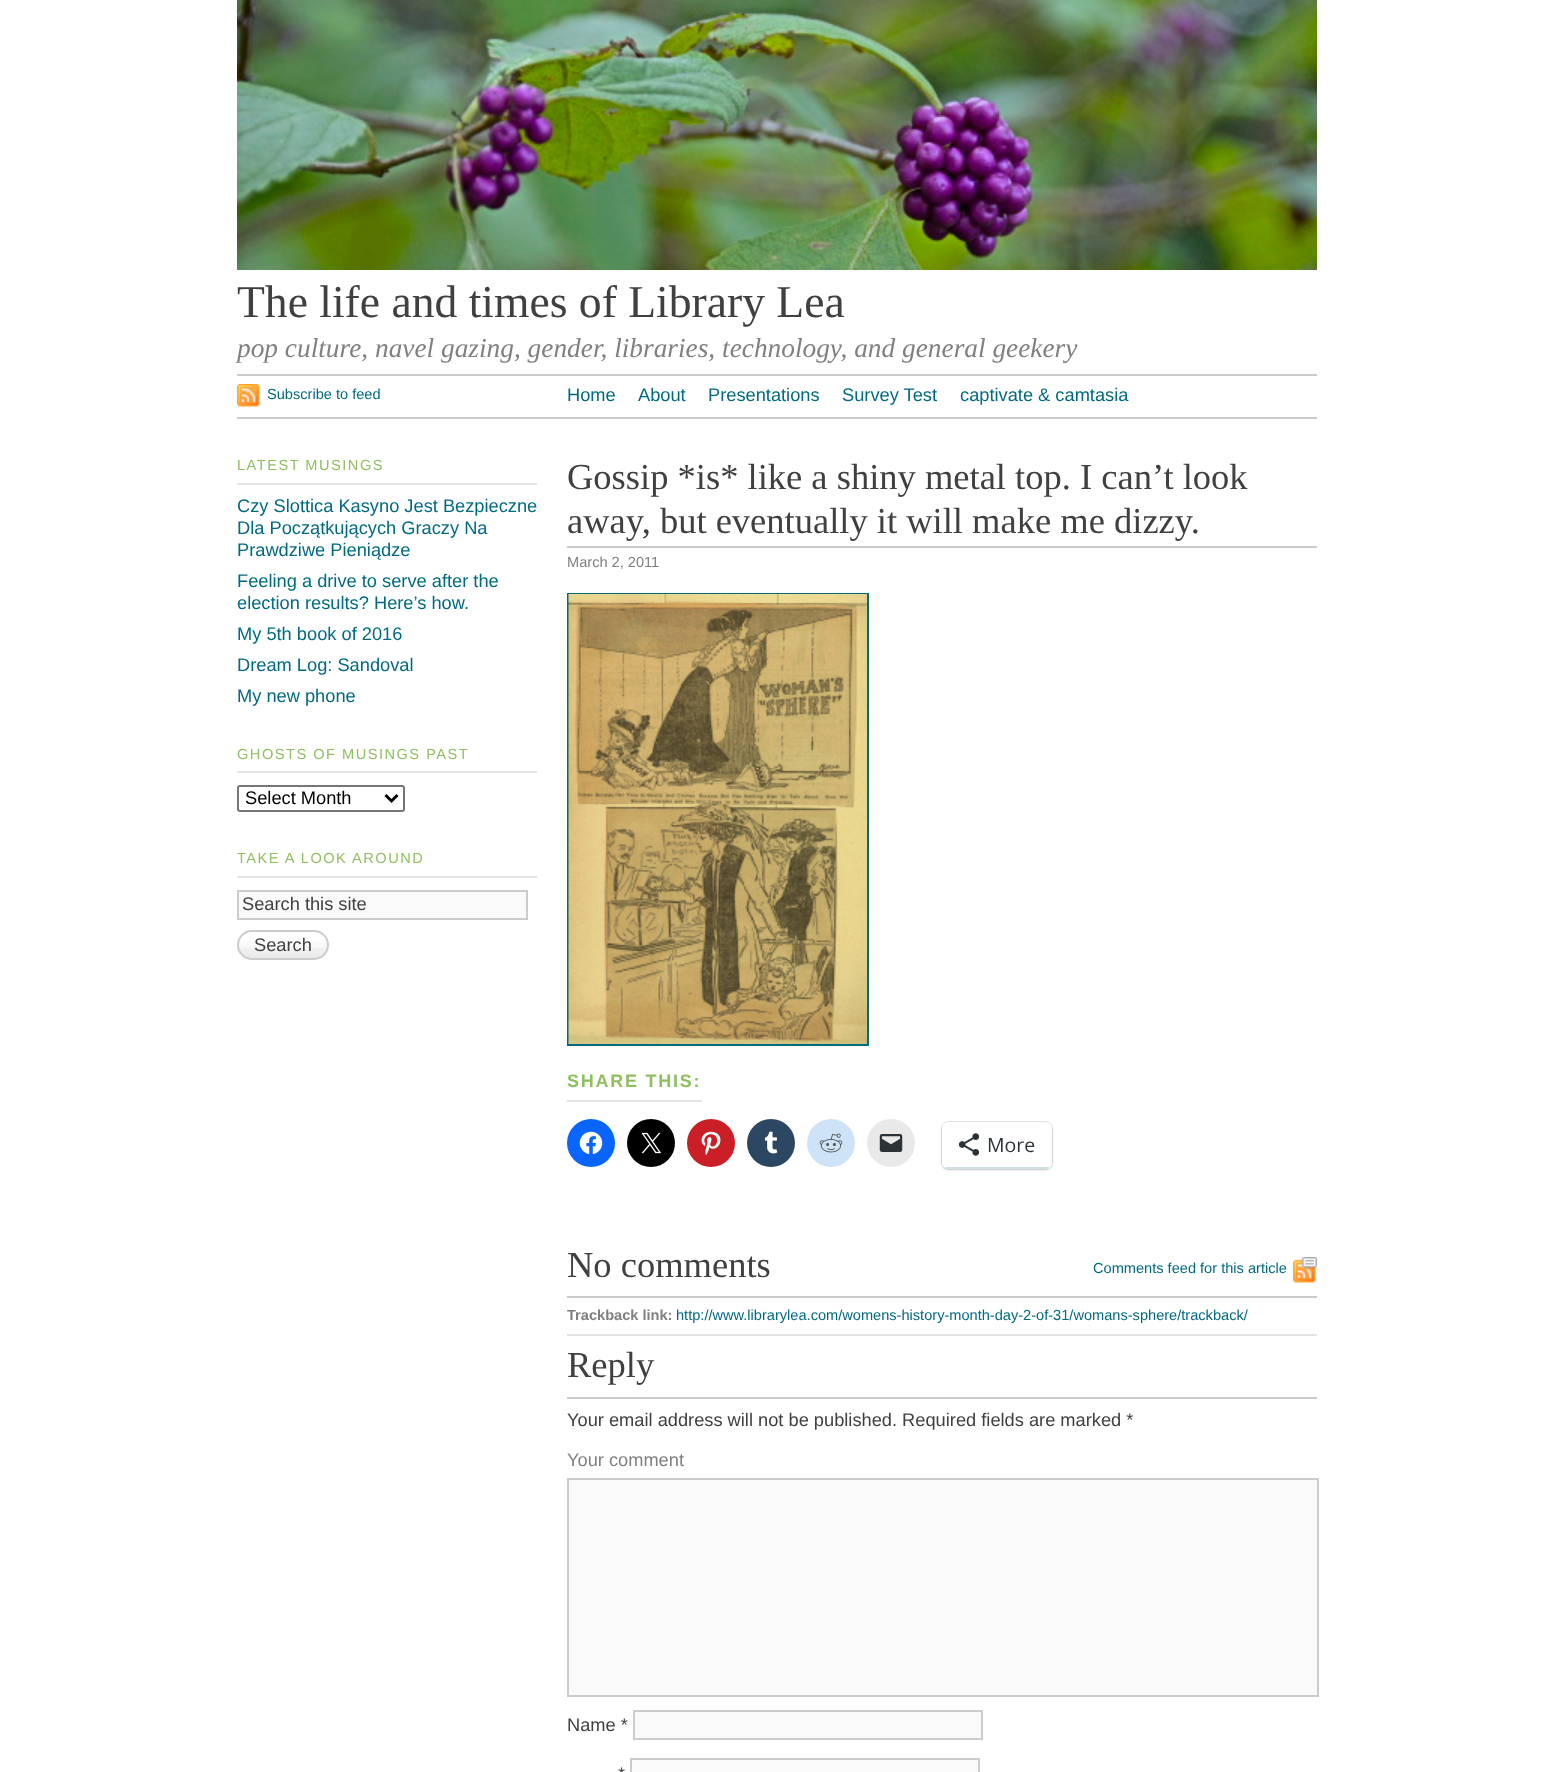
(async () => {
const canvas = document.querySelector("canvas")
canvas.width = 1554
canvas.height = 1772
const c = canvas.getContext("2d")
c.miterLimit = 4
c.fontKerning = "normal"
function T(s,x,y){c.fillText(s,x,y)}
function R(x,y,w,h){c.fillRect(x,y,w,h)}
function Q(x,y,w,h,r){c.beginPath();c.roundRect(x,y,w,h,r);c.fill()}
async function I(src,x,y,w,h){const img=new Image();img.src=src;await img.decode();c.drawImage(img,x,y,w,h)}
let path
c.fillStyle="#fff"
R(0,0,1554,1772)
await I("1.png",237,0,1080,270)
c.fillStyle="#ccc"
R(237,374,1080,2)
c.font="45.6px Liberation Serif"
c.fillStyle="#404040"
T("The life and times of Library Lea",237,317)
c.font="italic 27.35px Liberation Serif"
c.fillStyle="#808080"
T("pop culture, navel gazing, gender, libraries, technology, and general geekery",237,357)
c.fillStyle="#ccc"
R(237,417,1080,2)
await I("2.png",237,384,23,23)
c.font="14.6px Liberation Sans"
c.fillStyle="#006a80"
T("Subscribe to feed",267,399)
c.font="18.25px Liberation Sans"
T("Home",567,401)
T("About",638,401)
T("Presentations",708,401)
T("Survey Test",842,401)
T("captivate & camtasia",960,401)
c.fillStyle="#e5e5e5"
R(237,483,300,2)
c.letterSpacing="1.5px"
c.font="14.6px Liberation Sans"
c.fillStyle="#8fbf60"
T("LATEST MUSINGS",237,470)
c.letterSpacing="0px"
c.font="18.25px Liberation Sans"
c.fillStyle="#006a80"
T("Czy Slottica Kasyno Jest Bezpieczne",237,512)
T("Dla Początkujących Graczy Na",237,534)
T("Prawdziwe Pieniądze",237,556)
T("Feeling a drive to serve after the",237,587)
T("election results? Here’s how.",237,609)
T("My 5th book of 2016",237,640)
T("Dream Log: Sandoval",237,671)
T("My new phone",237,702)
c.fillStyle="#e5e5e5"
R(237,771,300,2)
c.letterSpacing="1.5px"
c.font="14.6px Liberation Sans"
c.fillStyle="#8fbf60"
T("GHOSTS OF MUSINGS PAST",237,759)
c.beginPath()
c.roundRect(238,786,166,25,2)
c.strokeStyle="#767676"
c.lineWidth=2
c.stroke()
path = new Path2D("M385.5 795l6 6l6-6")
c.strokeStyle="#000"
c.lineWidth=3
c.stroke(path)
c.letterSpacing="0px"
c.font="18.25px Liberation Sans"
c.fillStyle="#000"
T("Select Month",245,804)
c.fillStyle="#e5e5e5"
R(237,876,300,2)
c.letterSpacing="1.5px"
c.font="14.6px Liberation Sans"
c.fillStyle="#8fbf60"
T("TAKE A LOOK AROUND",237,863)
c.fillStyle="#fafafa"
c.beginPath()
c.rect(238,891,289,28)
c.fill()
c.strokeStyle="#ccc"
c.lineWidth=2
c.stroke()
c.letterSpacing="0px"
c.font="18.25px Liberation Sans"
c.fillStyle="#404040"
T("Search this site",242,910)
await I("3.png",237,941,91,19)
c.beginPath()
c.roundRect(238,931,90,28,14)
c.stroke()
T("Search",254,951)
c.fillStyle="#ccc"
R(567,546,750,2)
c.font="36.5px Liberation Serif"
c.fillStyle="#404040"
T("Gossip *is* like a shiny metal top. I can’t look",567,489)
T("away, but eventually it will make me dizzy.",567,533)
c.font="14.6px Liberation Sans"
c.fillStyle="#808080"
T("March 2, 2011",567,567)
c.strokeStyle="#006a80"
c.strokeRect(568,594,300,451)
await I("4.png",568,594,299,450)
c.fillStyle="#e5e5e5"
R(567,1100,135,2)
c.letterSpacing="1.75px"
c.font="bold 18px Liberation Sans"
c.fillStyle="#8fbf60"
T("SHARE THIS:",567,1087)
c.fillStyle="#0866ff"
c.beginPath()
c.arc(591,1143,24,0,7)
c.fill()
await I("5.png",579,1131,24,23)
c.fillStyle="#000"
c.beginPath()
c.arc(651,1143,24,0,7)
c.fill()
await I("6.png",641,1132,21,22)
c.fillStyle="#ca1f27"
c.beginPath()
c.arc(711,1143,24,0,7)
c.fill()
await I("7.png",701,1131,20,24)
c.fillStyle="#2c4762"
c.beginPath()
c.arc(771,1143,24,0,7)
c.fill()
await I("8.png",764,1131,14,23)
c.fillStyle="#cee3f8"
c.beginPath()
c.arc(831,1143,24,0,7)
c.fill()
await I("9.png",819,1133,24,20)
c.fillStyle="#e9e9e9"
c.beginPath()
c.arc(891,1143,24,0,7)
c.fill()
await I("10.png",879,1134,24,18)
c.beginPath()
c.roundRect(942,1122,110,47,7)
c.strokeStyle="#e0e0e0"
c.stroke()
c.fillStyle="#0000001f"
c.filter="blur(1.5px)"
c.beginPath()
c.roundRect(942,1124,110,46,6)
c.fill()
c.filter="none"
c.fillStyle="#fff"
Q(942,1122,110,47,6)
c.fillStyle="#cfe2e5"
R(945,1167,104,2)
await I("11.png",958,1133,22,23)
c.letterSpacing="0px"
c.font="19.5px Open Sans"
c.fillStyle="#2c3338"
T("More",987,1152)
c.font="36.5px Liberation Serif"
c.fillStyle="#404040"
T("No comments",567,1277)
await I("12.png",1293,1257,24,26)
c.font="14.6px Liberation Sans"
c.fillStyle="#006a80"
T("Comments feed for this article",1093,1273)
c.fillStyle="#ccc"
R(567,1296,750,2)
c.font="bold 14.6px Liberation Sans"
c.fillStyle="#808080"
T("Trackback link:",567,1320)
c.font="14.6px Liberation Sans"
c.fillStyle="#006a80"
T("http://www.librarylea.com/womens-history-month-day-2-of-31/womans-sphere/trackback/",676,1320)
c.fillStyle="#e5e5e5"
R(567,1334,750,2)
c.fillStyle="#ccc"
R(567,1397,750,2)
c.font="36.5px Liberation Serif"
c.fillStyle="#404040"
T("Reply",567,1377)
c.font="18.25px Liberation Sans"
T("Your email address will not be published. Required fields are marked *",567,1426)
c.fillStyle="#808080"
T("Your comment",567,1466)
c.fillStyle="#fafafa"
c.beginPath()
c.rect(568,1479,750,217)
c.fill()
c.strokeStyle="#ccc"
c.stroke()
c.fillStyle="#404040"
T("Name *",567,1731)
c.fillStyle="#fafafa"
c.beginPath()
c.rect(634,1711,348,28)
c.fill()
c.stroke()
c.fillStyle="#404040"
T("*",618,1780)
c.fillStyle="#fafafa"
c.beginPath()
c.rect(631,1759,348,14)
c.fill()
c.stroke()
})()
